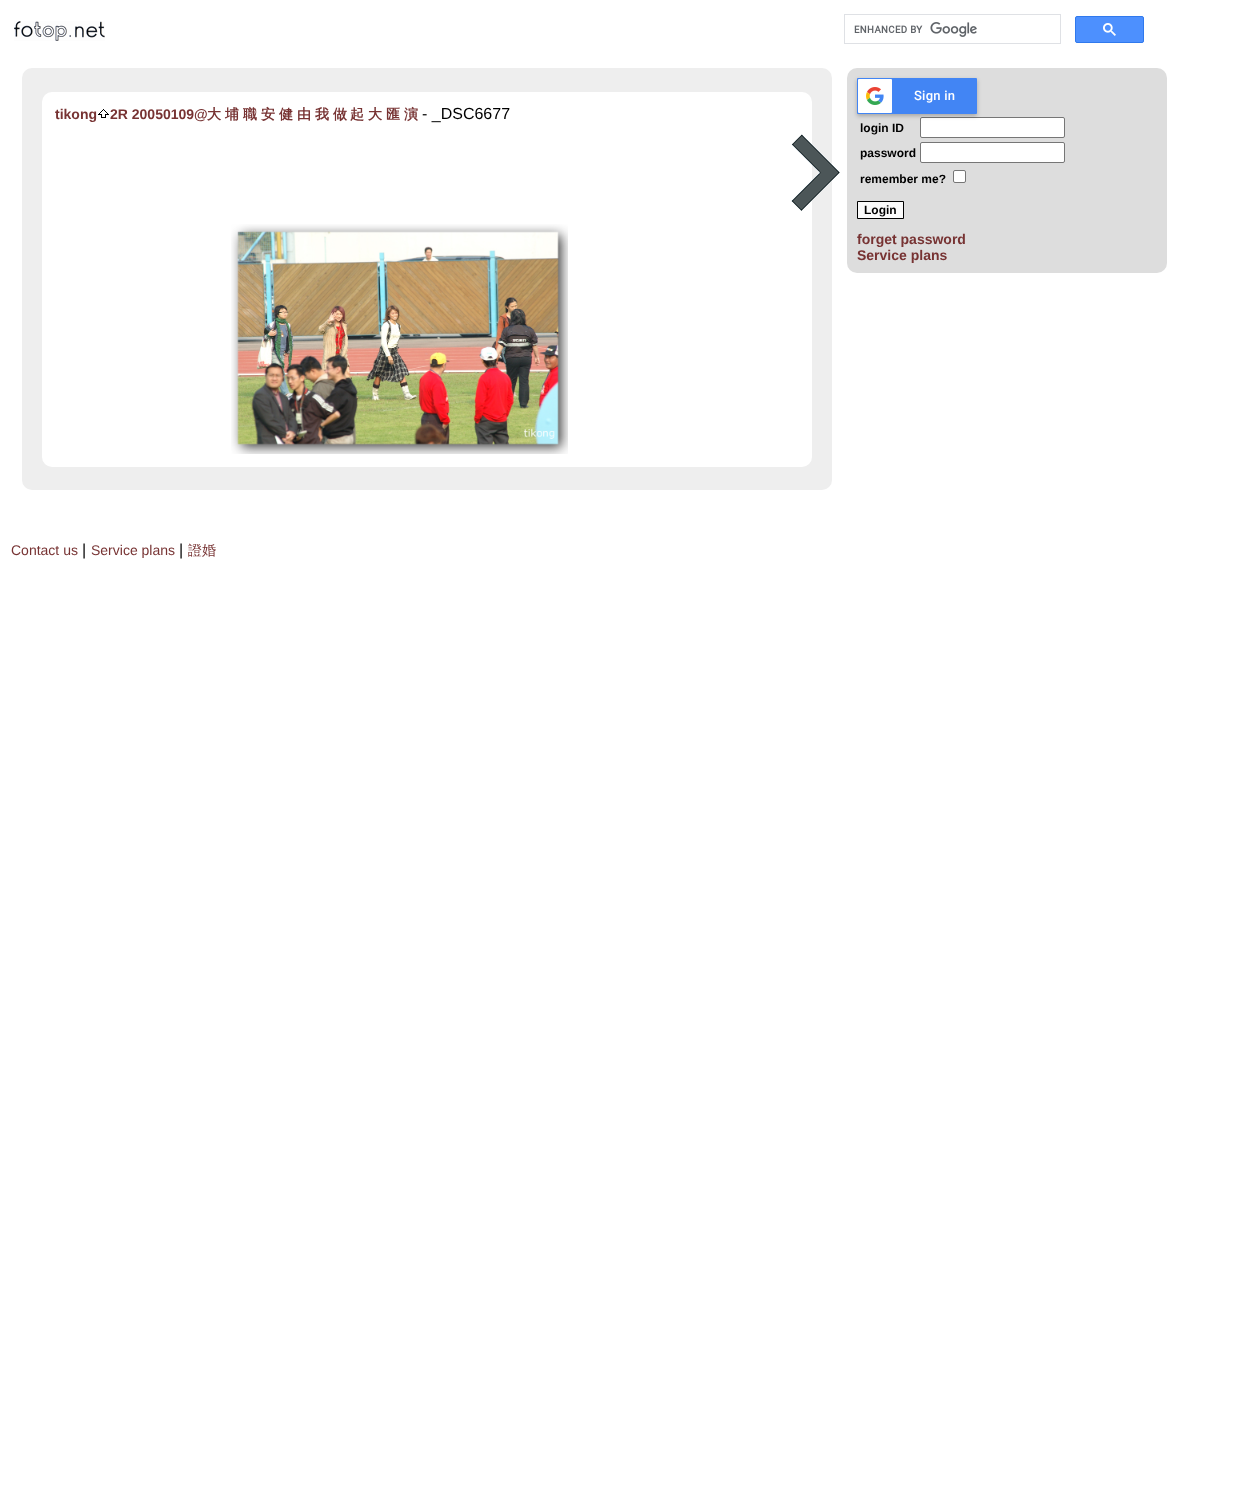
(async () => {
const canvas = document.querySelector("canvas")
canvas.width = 1259
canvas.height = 1491
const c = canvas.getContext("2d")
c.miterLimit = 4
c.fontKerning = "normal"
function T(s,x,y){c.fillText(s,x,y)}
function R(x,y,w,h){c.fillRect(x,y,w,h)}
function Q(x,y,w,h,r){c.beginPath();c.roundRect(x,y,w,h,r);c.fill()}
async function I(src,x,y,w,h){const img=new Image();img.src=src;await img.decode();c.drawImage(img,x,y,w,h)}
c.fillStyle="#fff"
R(0,0,1259,1491)
await I("1.png",14,21,91,20)
c.strokeStyle="#dfe1e5"
c.strokeRect(844.5,14.5,216,29)
await I("2.png",854,22,123,15)
c.fillStyle="#4d90fe"
c.beginPath()
c.roundRect(1075.5,16.5,68,26,1.5)
c.fill()
c.strokeStyle="#3079ed"
c.stroke()
await I("3.png",1103,23,13,13)
c.fillStyle="#eee"
Q(22,68,810,422,10)
c.fillStyle="#fff"
Q(42,92,770,375,10)
c.font="bold 14px Liberation Sans"
c.fillStyle="#733"
T("tikong",55,119)
await I("4.png",98,109,11,9)
T("2R 20050109@",110,119)
c.font="bold 14px WenQuanYi Zen Hei"
T("大",207,119)
T("埔",225,119)
T("職",243,119)
T("安",261,119)
T("健",279,119)
T("由",297,119)
T("我",315,119)
T("做",333,119)
T("起",350,119)
T("大",368,119)
T("匯",386,119)
T("演",404,119)
c.font="16px Liberation Sans"
c.fillStyle="#000"
T("- _DSC6677",422,119)
await I("5.png",791,134,49,77)
await I("6.png",231,224,337,230)
c.fillStyle="#ddd"
Q(847,68,320,205,10)
c.fillStyle="#fff"
c.beginPath()
c.roundRect(920.5,117.5,144,20,1.5)
c.fill()
c.strokeStyle="#767676"
c.stroke()
c.fillStyle="#00000040"
c.filter="blur(2px)"
c.beginPath()
c.roundRect(857,80,120,36,1)
c.fill()
c.filter="none"
c.fillStyle="#4285f4"
Q(857,78,120,36,1)
c.fillStyle="#fff"
Q(858,79,34,34,1)
await I("7.png",866,87,18,18)
c.letterSpacing="0.25px"
c.font="500 13px Roboto"
T("Sign in",914,100)
c.letterSpacing="0px"
c.font="bold 12px Liberation Sans"
c.fillStyle="#000"
T("login ID",860,132)
T("password",860,157)
c.fillStyle="#fff"
c.beginPath()
c.roundRect(920.5,142.5,144,20,1.5)
c.fill()
c.stroke()
c.fillStyle="#000"
T("remember me?",860,183)
c.fillStyle="#fff"
c.beginPath()
c.roundRect(953.5,170.5,12,12,1.5)
c.fill()
c.stroke()
c.fillStyle="#fafafa"
c.beginPath()
c.rect(857.5,201.5,46,17)
c.fill()
c.strokeStyle="#000"
c.stroke()
c.fillStyle="#000"
T("Login",864,214)
c.font="bold 14px Liberation Sans"
c.fillStyle="#733"
T("forget password",857,244)
T("Service plans",857,260)
c.font="14px Liberation Sans"
T("Contact us",11,555)
c.font="16px Liberation Sans"
c.fillStyle="#000"
T("|",82,555)
c.font="14px Liberation Sans"
c.fillStyle="#733"
T("Service plans",91,555)
c.font="16px Liberation Sans"
c.fillStyle="#000"
T("|",179,555)
c.font="500 14px WenQuanYi Zen Hei"
c.fillStyle="#733"
T("證婚",188,555)
})()
